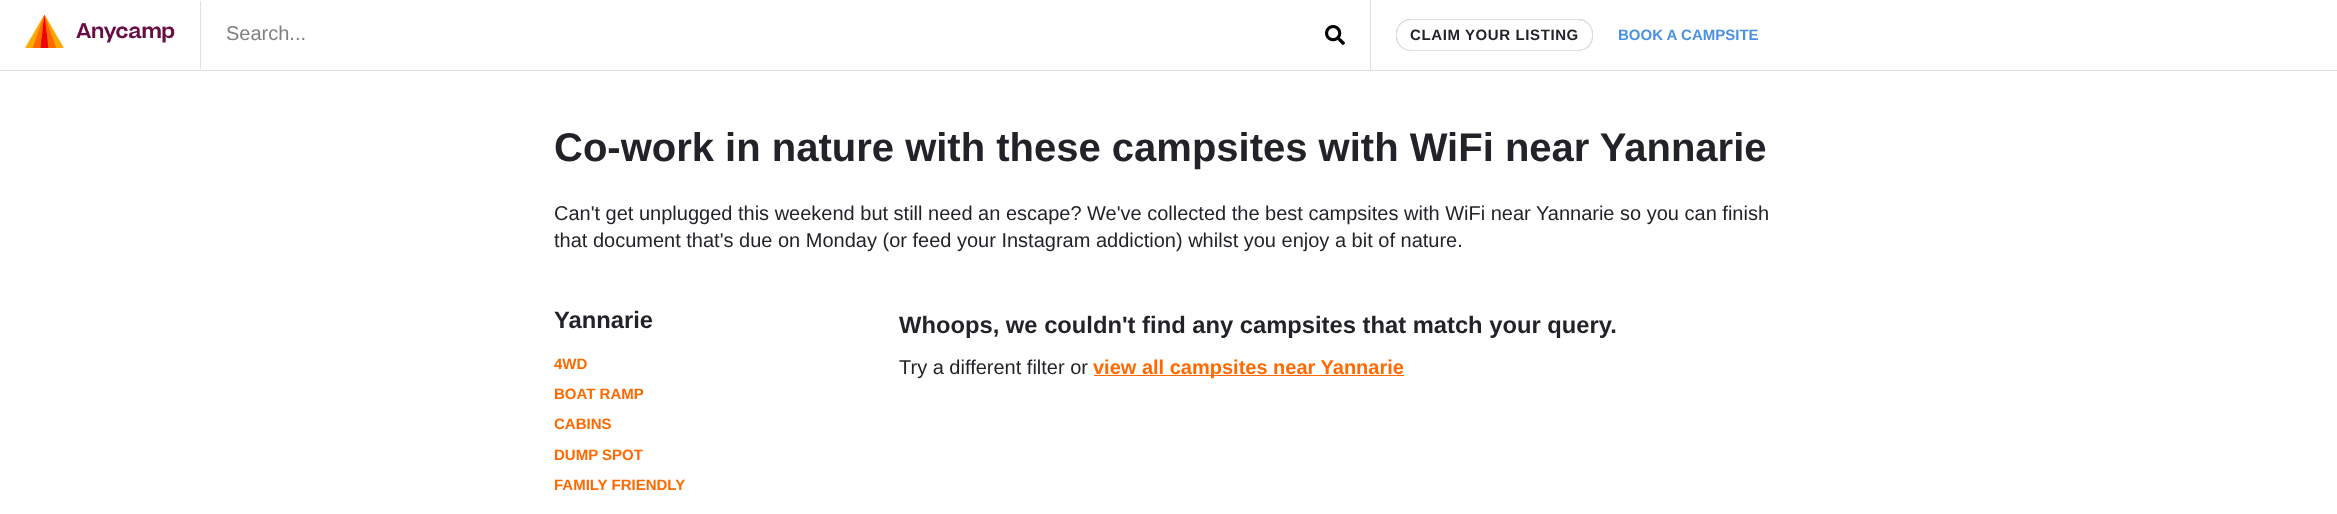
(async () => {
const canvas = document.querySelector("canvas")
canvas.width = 2337
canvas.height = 514
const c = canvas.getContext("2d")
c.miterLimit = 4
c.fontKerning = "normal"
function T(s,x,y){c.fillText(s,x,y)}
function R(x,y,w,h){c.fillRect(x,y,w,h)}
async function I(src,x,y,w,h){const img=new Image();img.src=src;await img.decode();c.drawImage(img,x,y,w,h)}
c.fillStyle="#fff"
R(0,0,2337,514)
c.fillStyle="#e0e0e0"
R(0,70,2337,1)
R(200,1,1,68)
await I("1.png",25,14,150,34)
c.font="20px Liberation Sans"
c.fillStyle="#808080"
T("Search...",226,40)
await I("2.png",1325,25,20,20)
c.fillStyle="#e0e0e0"
R(1370,0,1,70)
c.fillStyle="#0000004d"
c.filter="blur(0.5px)"
c.beginPath()
c.roundRect(1396,19,197,32,15)
c.fill()
c.filter="none"
c.fillStyle="#fff"
c.beginPath()
c.roundRect(1396.5,19.5,196,31,14.5)
c.fill()
c.strokeStyle="#e0e0e0"
c.stroke()
c.letterSpacing="0.6px"
c.font="bold 15px Liberation Sans"
c.fillStyle="#222328"
T("CLAIM YOUR LISTING",1410,40)
c.fillStyle="#fff"
c.beginPath()
c.roundRect(1593,0,191,70,[6,6,0,0])
c.fill()
c.letterSpacing="0px"
c.fillStyle="#4b91e3"
T("BOOK A CAMPSITE",1618,40)
c.font="bold 40px Liberation Sans"
c.fillStyle="#222328"
T("Co-work in nature with these campsites with WiFi near Yannarie",554,161)
c.font="20px Liberation Sans"
T("Can't get unplugged this weekend but still need an escape? We've collected the best campsites with WiFi near Yannarie so you can finish",554,220)
T("that document that's due on Monday (or feed your Instagram addiction) whilst you enjoy a bit of nature.",554,247)
c.font="bold 23.75px Liberation Sans"
T("Yannarie",554,328)
c.font="bold 15px Liberation Sans"
c.fillStyle="#ff6900"
T("4WD",554,369)
T("BOAT RAMP",554,399)
T("CABINS",554,429)
T("DUMP SPOT",554,460)
T("FAMILY FRIENDLY",554,490)
c.font="bold 23.75px Liberation Sans"
c.fillStyle="#222328"
T("Whoops, we couldn't find any campsites that match your query.",899,333)
c.font="20px Liberation Sans"
T("Try a different filter or",899,374)
c.fillStyle="#ff6900"
R(1094,375,310,1)
c.font="bold 20px Liberation Sans"
T("view all campsites near Yannarie",1093,374)
})()
